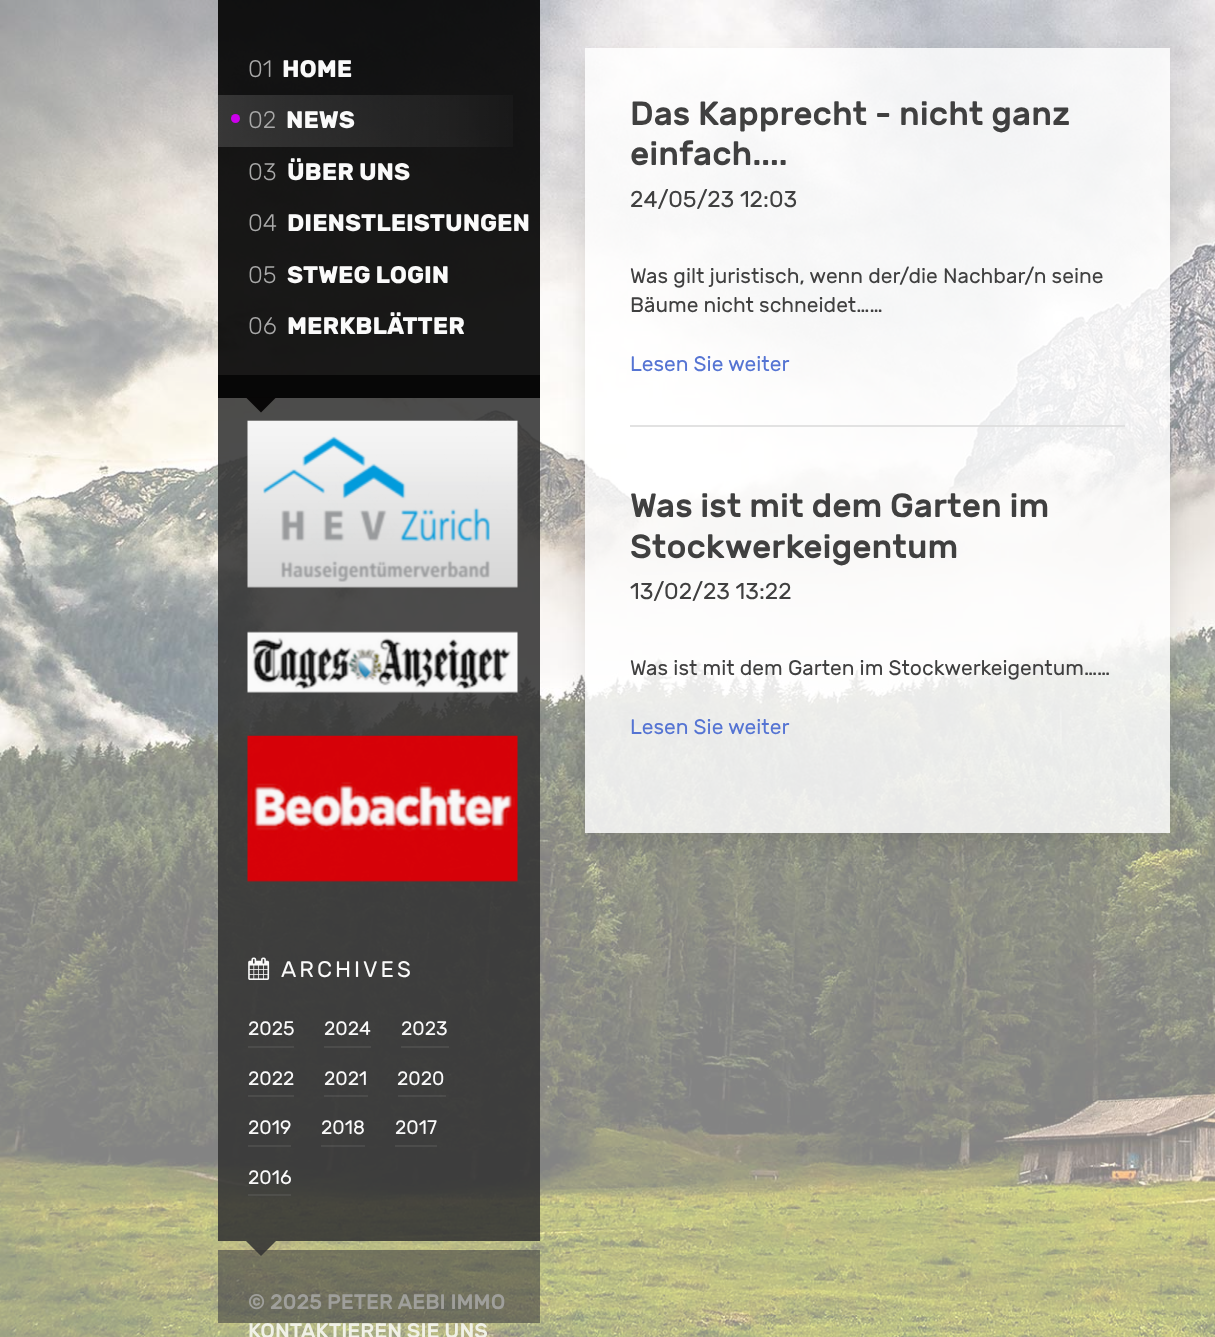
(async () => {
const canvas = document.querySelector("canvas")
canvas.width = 1215
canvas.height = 1337
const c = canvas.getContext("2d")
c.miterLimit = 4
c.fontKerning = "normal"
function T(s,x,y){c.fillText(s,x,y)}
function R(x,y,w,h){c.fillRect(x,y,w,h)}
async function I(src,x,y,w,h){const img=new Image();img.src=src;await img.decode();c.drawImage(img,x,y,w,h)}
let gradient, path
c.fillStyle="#fff"
R(0,0,1215,1337)
await I("1.png",0,0,1215,1337)
c.fillStyle="#333333e0"
R(218,375,322,866)
c.fillStyle="#000000e6"
R(218,0,322,398)
c.font="300 24px Rubik"
c.fillStyle="#a9a9a9"
T("01",248,77)
c.font="bold 24px Rubik"
c.fillStyle="#fafafa"
T("HOME",282,77)
gradient = c.createLinearGradient(218,121,563,121)
gradient.addColorStop(0,"#ffffff26")
gradient.addColorStop(1,"#ffffff00")
c.fillStyle = gradient
R(218,95,295,52)
c.fillStyle="#cc00ec"
c.beginPath()
c.arc(235.5,118.5,4.5,0,7)
c.fill()
c.font="300 24px Rubik"
c.fillStyle="#a9a9a9"
T("02",248,128)
c.font="bold 24px Rubik"
c.fillStyle="#fafafa"
T("NEWS",286,128)
c.font="300 24px Rubik"
c.fillStyle="#a9a9a9"
T("03",248,180)
c.font="bold 24px Rubik"
c.fillStyle="#fafafa"
T("ÜBER UNS",287,180)
c.font="300 24px Rubik"
c.fillStyle="#a9a9a9"
T("04",248,231)
c.font="bold 24px Rubik"
c.fillStyle="#fafafa"
T("DIENSTLEISTUNGEN",287,231)
c.font="300 24px Rubik"
c.fillStyle="#a9a9a9"
T("05",248,283)
c.font="bold 24px Rubik"
c.fillStyle="#fafafa"
T("STWEG LOGIN",287,283)
c.font="300 24px Rubik"
c.fillStyle="#a9a9a9"
T("06",248,334)
c.font="bold 24px Rubik"
c.fillStyle="#fafafa"
T("MERKBLÄTTER",287,334)
c.fillStyle="#080707"
path = new Path2D("M246 397.5h30l-15 15z")
c.fill(path)
await I("2.png",247,420,271,168)
await I("3.png",247,631,271,62)
await I("4.png",247,735,271,147)
await I("5.png",248,957,22,23)
c.letterSpacing="3px"
c.font="22.5px Rubik"
c.fillStyle="#fafafa"
T("ARCHIVES",281,977)
c.fillStyle="#4c4c4b"
R(248,1046,46,2)
c.letterSpacing="0px"
c.font="19.5px Rubik"
c.fillStyle="#fafafa"
T("2025",248,1035)
c.fillStyle="#4c4c4b"
R(324,1046,47,2)
c.fillStyle="#fafafa"
T("2024",324,1035)
c.fillStyle="#4c4c4b"
R(401,1046,48,2)
c.fillStyle="#fafafa"
T("2023",401,1035)
c.fillStyle="#4c4c4b"
R(248,1095,46,2)
c.fillStyle="#fafafa"
T("2022",248,1085)
c.fillStyle="#88888830"
R(324,1095,44,2)
c.fillStyle="#fafafa"
T("2021",324,1085)
c.fillStyle="#88888830"
R(398,1095,48,2)
c.fillStyle="#fafafa"
T("2020",397,1085)
c.fillStyle="#4c4c4b"
R(248,1145,43,2)
c.fillStyle="#fafafa"
T("2019",248,1134)
c.fillStyle="#88888830"
R(321,1145,44,2)
c.fillStyle="#fafafa"
T("2018",321,1134)
c.fillStyle="#4c4c4b"
R(395,1145,42,2)
c.fillStyle="#fafafa"
T("2017",395,1134)
c.fillStyle="#4f4f4b"
R(248,1194,43,2)
c.fillStyle="#fafafa"
T("2016",248,1184)
c.fillStyle="#484848a3"
R(218,1250,322,73)
c.fillStyle="#333333e0"
path = new Path2D("M246 1241h30l-15 15z")
c.fill(path)
c.font="500 21px Rubik"
c.fillStyle="#9f9f9b"
T("© 2025 PETER AEBI IMMO",248,1309)
c.fillStyle="#f0f1e7"
T("KONTAKTIEREN SIE UNS",248,1338)
c.save()
path = new Path2D("M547 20h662v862h-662zm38 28h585v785h-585z")
c.clip(path,"evenodd")
c.fillStyle="#0000002b"
c.filter="blur(15px)"
c.beginPath()
c.rect(593,66,570,770)
c.fill()
c.filter="none"
c.restore()
c.fillStyle="#ffffffd1"
R(585,48,585,785)
c.font="500 33.6px Rubik"
c.fillStyle="#404040"
T("Das Kapprecht - nicht ganz",630,125)
T("einfach....",630,165)
c.font="23px Rubik"
T("24/05/23 12:03",630,207)
c.font="21px Rubik"
T("Was gilt juristisch, wenn der/die Nachbar/n seine",630,283)
T("Bäume nicht schneidet……",630,312)
c.fillStyle="#5574d3"
T("Lesen Sie weiter",630,371)
c.fillStyle="#dddddddb"
R(630,425,495,2)
c.font="500 33.6px Rubik"
c.fillStyle="#404040"
T("Was ist mit dem Garten im",630,517)
T("Stockwerkeigentum",630,558)
c.font="23px Rubik"
T("13/02/23 13:22",630,599)
c.font="21px Rubik"
T("Was ist mit dem Garten im Stockwerkeigentum……",630,675)
c.fillStyle="#5574d3"
T("Lesen Sie weiter",630,734)
})()
